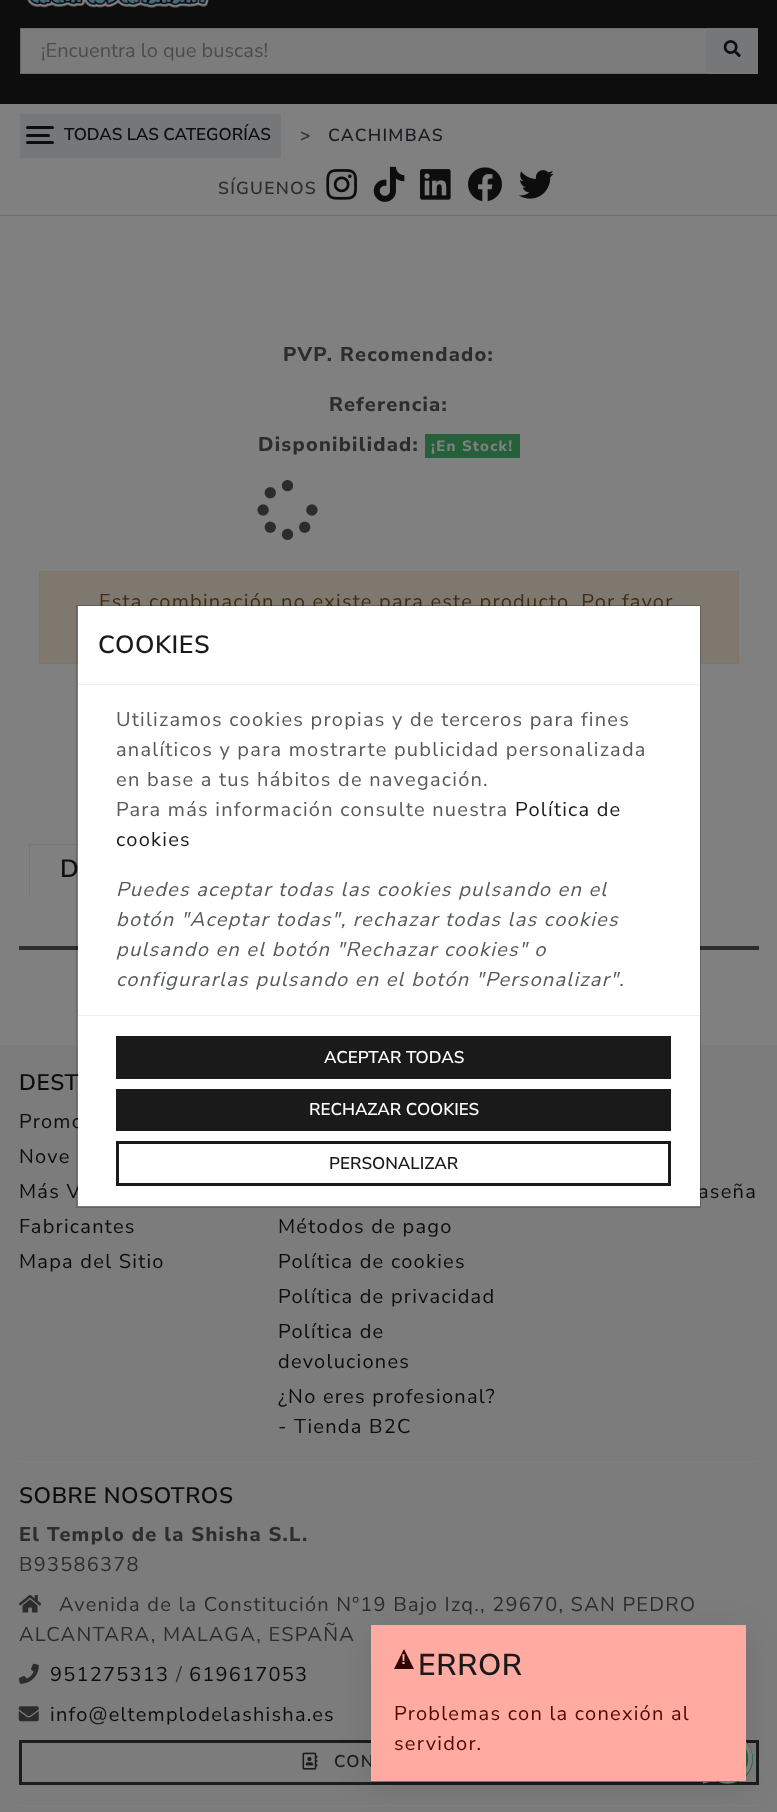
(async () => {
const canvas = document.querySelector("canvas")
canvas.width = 777
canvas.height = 1812
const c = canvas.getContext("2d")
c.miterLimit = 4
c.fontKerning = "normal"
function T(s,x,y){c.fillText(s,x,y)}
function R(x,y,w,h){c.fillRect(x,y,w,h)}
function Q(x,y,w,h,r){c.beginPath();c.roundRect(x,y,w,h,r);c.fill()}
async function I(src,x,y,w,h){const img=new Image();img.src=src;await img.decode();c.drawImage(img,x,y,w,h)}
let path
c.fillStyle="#808080"
R(0,0,777,1812)
c.fillStyle="#0d0d0d"
R(0,0,777,104)
await I("1.png",27,0,182,8)
c.fillStyle="#7c7c7d"
R(21,29,685,44)
c.strokeStyle="#676a6d"
c.strokeRect(20.5,28.5,687,45)
c.font="20px Nunito Sans"
c.fillStyle="#494d51"
T("¡Encuentra lo que buscas!",41,57)
c.fillStyle="#767778"
R(706,28,52,46)
await I("2.png",723,40,18,18)
c.fillStyle="#6f6f6f"
R(0,215,777,1)
c.fillStyle="#767778"
R(20,114,261,44)
c.fillStyle="#0d0d0d"
Q(26,126,28,3,1.5)
Q(26,134,24,3,1.5)
Q(26,141,28,3,1.5)
c.font="600 17px Nunito Sans"
T("TODAS LAS CATEGORÍAS",64,140)
c.letterSpacing="1.25px"
c.font="600 17.5px Nunito Sans"
c.fillStyle="#2b2d2e"
T(">",300,141)
c.fillStyle="#1a1d20"
T("CACHIMBAS",328,141)
c.fillStyle="#2b2d2e"
T("SÍGUENOS",218,194)
await I("3.png",326,169,31,31)
await I("4.png",373,166,32,36)
await I("5.png",420,169,31,31)
await I("6.png",468,167,34,35)
await I("7.png",519,170,35,29)
c.font="800 20px Nunito Sans"
T("PVP. Recomendado:",283,361)
T("Referencia:",329,411)
T("Disponibilidad:",258,451)
c.fillStyle="#26603a"
R(425,434,95,24)
c.font="800 15px Nunito Sans"
c.fillStyle="#808080"
T("¡En Stock!",431,451)
await I("8.png",257,480,61,60)
c.fillStyle="#7e786e"
c.beginPath()
c.rect(39.5,571.5,699,92)
c.fill()
c.strokeStyle="#7e7467"
c.stroke()
c.font="20px Nunito Sans"
c.fillStyle="#3f2d15"
T("Esta combinación no existe para este producto. Por favor",99,608)
c.fillStyle="#2b2d2e"
R(19,946,740,4)
c.fillStyle="#767778"
R(29,844,49,1)
R(29,844,1,52)
c.letterSpacing="0.6px"
c.font="600 25px Nunito Sans"
c.fillStyle="#0d0d0d"
T("D",60,877)
c.fillStyle="#7c7c7d"
R(0,1045,777,767)
c.letterSpacing="1.25px"
c.font="20px Nunito Sans"
c.fillStyle="#0d0d0d"
T("Promo",19,1128)
T("Más V",19,1198)
T("aseña",698,1198)
c.fillStyle="#fff"
R(78,606,622,600)
c.letterSpacing="0.6px"
c.font="600 22.5px Nunito Sans"
c.fillStyle="#0d0d0d"
T("DEST",19,1090)
c.strokeStyle="#00000033"
c.strokeRect(76.5,605.5,624,602)
c.fillStyle="#eceeef"
R(78,684,622,1)
c.font="600 25px Nunito Sans"
c.fillStyle="#1a1a1a"
T("COOKIES",98,653)
c.letterSpacing="1.25px"
c.font="20px Nunito Sans"
c.fillStyle="#55595c"
T("Utilizamos cookies propias y de terceros para fines",116,726)
T("analíticos y para mostrarte publicidad personalizada",116,756)
T("en base a tus hábitos de navegación.",116,786)
T("Para más información consulte nuestra",116,816)
c.fillStyle="#1a1a1a"
T("Política de",515,816)
T("cookies",116,846)
c.font="italic 20px Nunito Sans"
c.fillStyle="#55595c"
T("Puedes aceptar todas las cookies pulsando en el",116,896)
T("botón \"Aceptar todas\", rechazar todas las cookies",116,926)
T("pulsando en el botón \"Rechazar cookies\" o",116,956)
T("configurarlas pulsando en el botón \"Personalizar\".",116,986)
c.fillStyle="#eceeef"
R(78,1015,622,1)
c.fillStyle="#1a1a1a"
R(116,1036,555,43)
c.letterSpacing="0px"
c.font="600 17px Nunito Sans"
c.fillStyle="#fff"
T("ACEPTAR TODAS",324,1063)
c.fillStyle="#1a1a1a"
R(116,1089,555,42)
c.fillStyle="#fff"
T("RECHAZAR COOKIES",309,1115)
c.strokeStyle="#1a1a1a"
c.lineWidth=3
c.strokeRect(117.5,1142.5,552,42)
c.fillStyle="#1a1a1a"
T("PERSONALIZAR",329,1169)
c.letterSpacing="1.25px"
c.font="20px Nunito Sans"
c.fillStyle="#0d0d0d"
T("Nove",19,1163)
T("Fabricantes",19,1233)
T("Mapa del Sitio",19,1268)
T("Métodos de pago",278,1233)
T("Política de cookies",278,1268)
T("Política de privacidad",278,1303)
T("Política de",278,1338)
T("devoluciones",278,1368)
T("¿No eres profesional?",278,1403)
T("- Tienda B2C",278,1433)
c.fillStyle="#808080"
R(19,1461,740,1)
c.letterSpacing="0.6px"
c.font="600 22.5px Nunito Sans"
c.fillStyle="#0d0d0d"
T("SOBRE NOSOTROS",19,1503)
c.letterSpacing="1.25px"
c.font="800 20px Nunito Sans"
c.fillStyle="#2b2d2e"
T("El Templo de la Shisha S.L.",19,1541)
c.font="20px Nunito Sans"
T("B93586378",19,1571)
await I("9.png",18,1595,24,18)
T("Avenida de la Constitución Nº19 Bajo Izq., 29670, SAN PEDRO",59,1611)
T("ALCANTARA, MALAGA, ESPAÑA",19,1641)
await I("10.png",18,1663,21,21)
c.fillStyle="#0d0d0d"
T("951275313",50,1681)
c.fillStyle="#2b2d2e"
T("/",176,1681)
c.fillStyle="#0d0d0d"
T("619617053",189,1681)
await I("11.png",18,1706,21,16)
T("info@eltemplodelashisha.es",50,1721)
c.strokeStyle="#1a1d20"
c.strokeRect(20.5,1741.5,737,42)
await I("12.png",302,1752,16,18)
c.font="600 17px Nunito Sans"
c.fillStyle="#1a1d20"
T("CON",334,1767)
c.fillStyle="#808080"
R(19,1805,740,1)
c.fillStyle="#136a33"
c.beginPath()
c.arc(728,1759,25,0,7)
c.fill()
await I("13.png",703,1742,50,42)
c.fillStyle="#0000001a"
c.filter="blur(17.5px)"
c.beginPath()
c.rect(371,1633,375,156)
c.fill()
c.filter="none"
c.fillStyle="#ffaba2"
R(371,1625,375,156)
c.fillStyle="#2e0400"
path = new Path2D("M414 1669h-20l10-20z")
c.fill(path)
c.font="bold 15px Liberation Mono"
c.fillStyle="#ffaba2"
T("!",399,1664)
c.letterSpacing="0.6px"
c.font="600 30px Nunito Sans"
c.fillStyle="#1a1a1a"
T("ERROR",418,1675)
c.letterSpacing="1.25px"
c.font="20px Nunito Sans"
c.fillStyle="#4f0800"
T("Problemas con la conexión al",394,1720)
T("servidor.",394,1750)
})()
